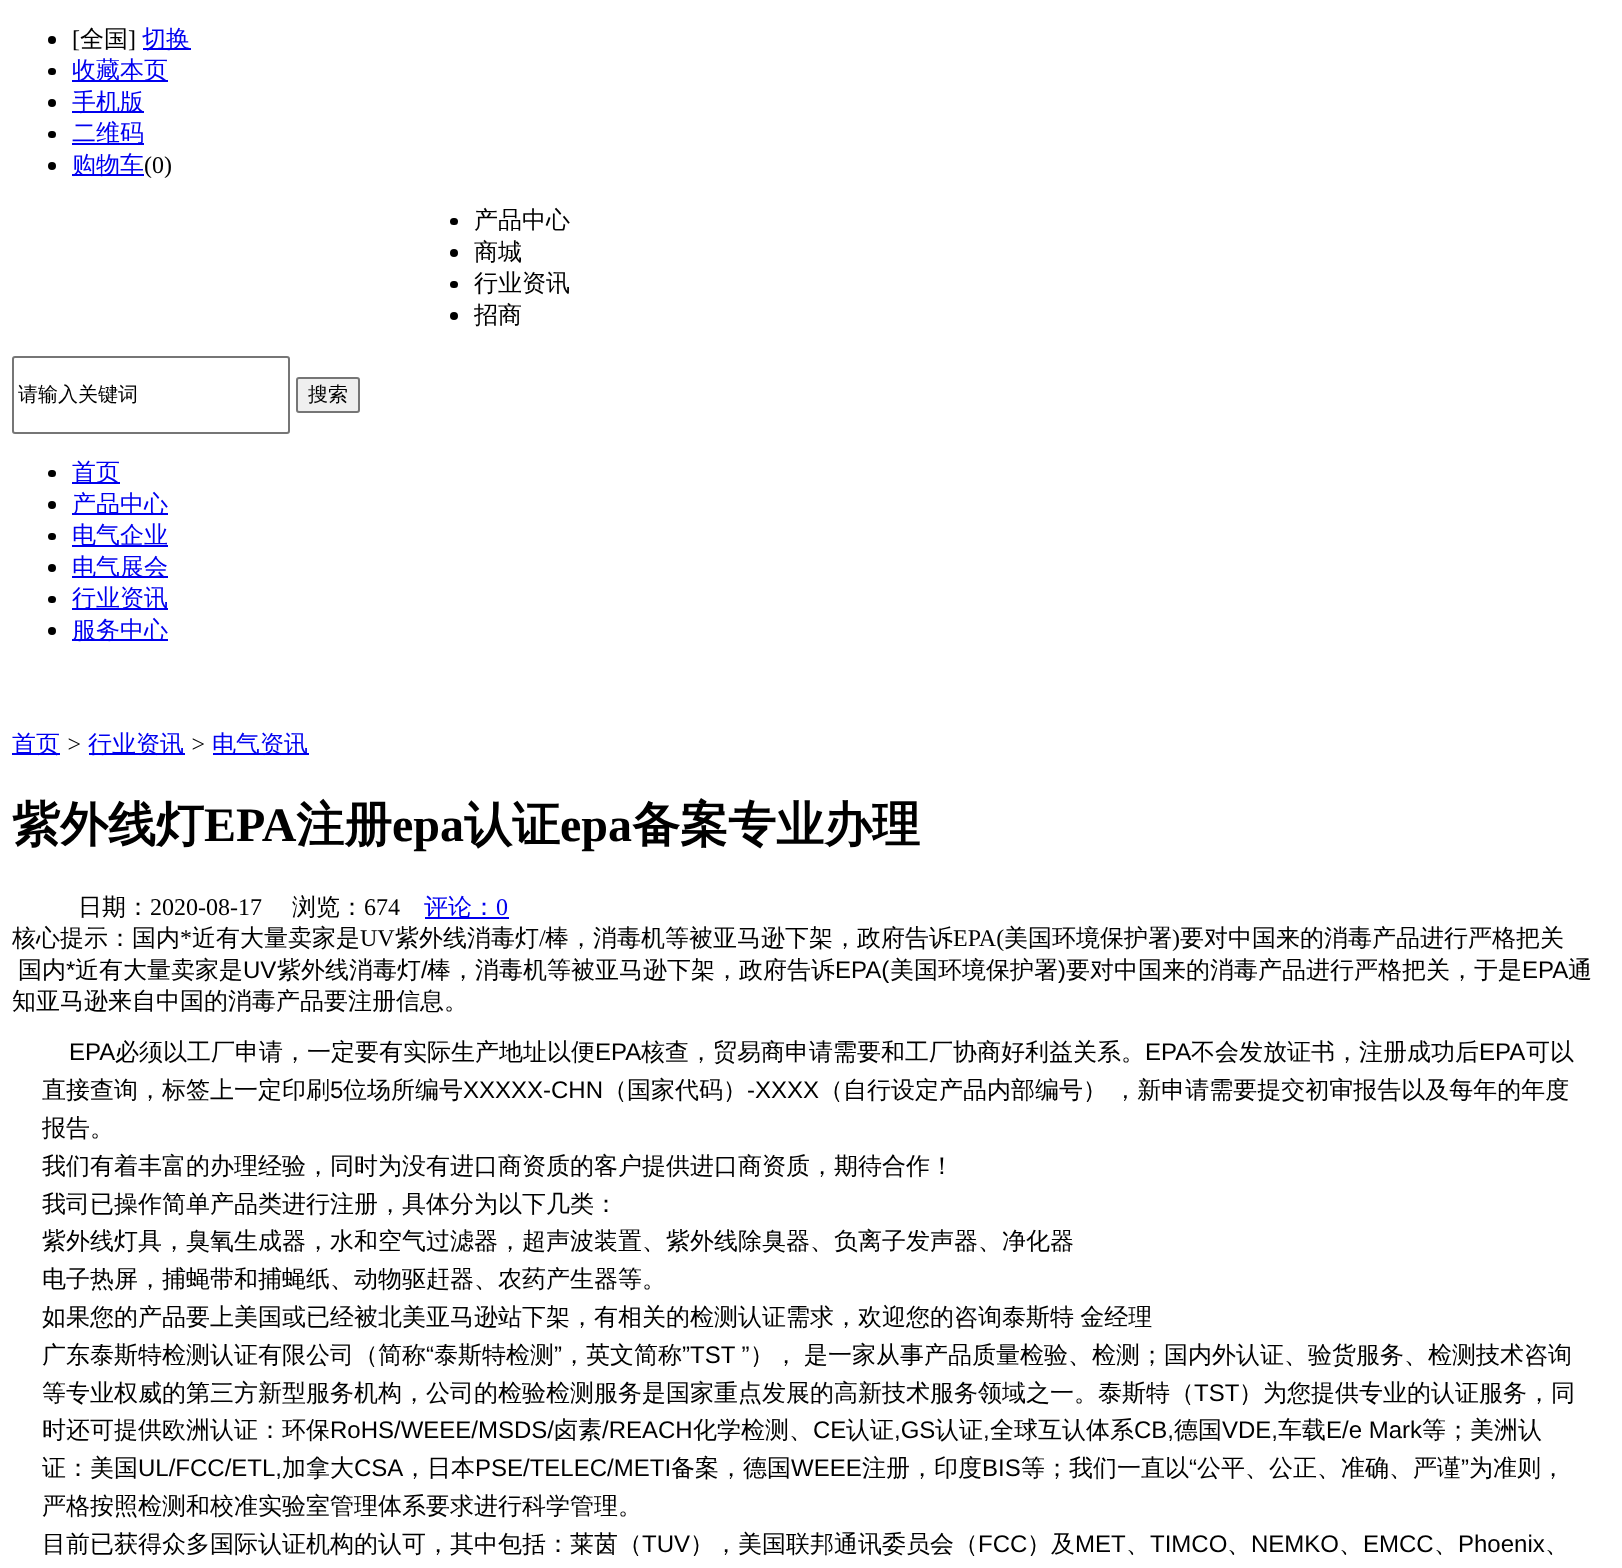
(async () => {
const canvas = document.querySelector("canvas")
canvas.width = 1622
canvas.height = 1568
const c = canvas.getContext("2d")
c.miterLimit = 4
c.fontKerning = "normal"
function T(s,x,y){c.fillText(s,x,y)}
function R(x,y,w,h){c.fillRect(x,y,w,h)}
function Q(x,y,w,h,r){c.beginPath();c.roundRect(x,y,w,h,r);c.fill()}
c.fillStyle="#fff"
R(0,0,1622,1568)
c.fillStyle="#000"
c.beginPath()
c.arc(52,40,4,0,7)
c.fill()
c.font="24px Liberation Serif"
T("[",72,47)
c.font="500 24px WenQuanYi Zen Hei"
T("全国",80,47)
c.font="24px Liberation Serif"
T("]",128,47)
c.fillStyle="#00e"
R(143,48,48,2)
c.font="500 24px WenQuanYi Zen Hei"
T("切换",142,47)
c.fillStyle="#000"
Q(48,68,8,7,3.5)
c.fillStyle="#00e"
R(72,80,96,2)
T("收藏本页",72,78)
c.fillStyle="#000"
c.beginPath()
c.arc(52,103,4,0,7)
c.fill()
c.fillStyle="#00e"
R(72,111,72,2)
T("手机版",72,110)
c.fillStyle="#000"
Q(48,131,8,7,3.5)
c.fillStyle="#00e"
R(72,143,72,2)
T("二维码",72,141)
c.fillStyle="#000"
c.beginPath()
c.arc(52,166,4,0,7)
c.fill()
c.fillStyle="#00e"
R(72,174,72,2)
T("购物车",72,173)
c.font="24px Liberation Serif"
c.fillStyle="#000"
T("(0)",144,173)
Q(450,218,8,7,3.5)
c.font="500 24px WenQuanYi Zen Hei"
T("产品中心",474,228)
c.beginPath()
c.arc(454,253,4,0,7)
c.fill()
T("商城",474,260)
Q(450,281,8,7,3.5)
T("行业资讯",474,291)
c.beginPath()
c.arc(454,316,4,0,7)
c.fill()
T("招商",474,323)
c.beginPath()
c.roundRect(13,357,276,76,2)
c.strokeStyle="#767676"
c.lineWidth=2
c.stroke()
c.font="500 20px WenQuanYi Zen Hei"
T("请输入关键词",18,401)
c.fillStyle="#efefef"
c.beginPath()
c.roundRect(297,378,62,34,2)
c.fill()
c.stroke()
c.fillStyle="#000"
T("搜索",308,401)
Q(48,470,8,7,3.5)
c.fillStyle="#00e"
R(72,482,48,2)
c.font="500 24px WenQuanYi Zen Hei"
T("首页",72,480)
c.fillStyle="#000"
c.beginPath()
c.arc(52,505,4,0,7)
c.fill()
c.fillStyle="#00e"
R(72,513,96,2)
T("产品中心",72,512)
c.fillStyle="#000"
Q(48,533,8,7,3.5)
c.fillStyle="#00e"
R(72,545,96,2)
T("电气企业",72,543)
c.fillStyle="#000"
c.beginPath()
c.arc(52,568,4,0,7)
c.fill()
c.fillStyle="#00e"
R(72,576,96,2)
T("电气展会",72,575)
c.fillStyle="#000"
Q(48,596,8,7,3.5)
c.fillStyle="#00e"
R(72,608,96,2)
T("行业资讯",72,606)
c.fillStyle="#000"
c.beginPath()
c.arc(52,631,4,0,7)
c.fill()
c.fillStyle="#00e"
R(72,639,96,2)
T("服务中心",72,638)
R(12,753,48,2)
T("首页",12,752)
c.font="italic 24px Liberation Serif"
c.fillStyle="#000"
T(">",66,752)
c.fillStyle="#00e"
R(89,753,96,2)
c.font="500 24px WenQuanYi Zen Hei"
T("行业资讯",88,752)
c.font="italic 24px Liberation Serif"
c.fillStyle="#000"
T(">",190,752)
c.fillStyle="#00e"
R(213,753,96,2)
c.font="500 24px WenQuanYi Zen Hei"
T("电气资讯",212,752)
c.font="bold 48px WenQuanYi Zen Hei"
c.fillStyle="#000"
T("紫外线灯",12,841)
c.font="bold 48px Liberation Serif"
T("EPA",204,841)
c.font="bold 48px WenQuanYi Zen Hei"
T("注册",296,841)
c.font="bold 48px Liberation Serif"
T("epa",392,841)
c.font="bold 48px WenQuanYi Zen Hei"
T("认证",464,841)
c.font="bold 48px Liberation Serif"
T("epa",560,841)
c.font="bold 48px WenQuanYi Zen Hei"
T("备案专业办理",632,841)
c.font="500 24px WenQuanYi Zen Hei"
T("日期：",78,915)
c.font="24px Liberation Serif"
T("2020-08-17",150,915)
c.font="500 24px WenQuanYi Zen Hei"
T("浏览：",292,915)
c.font="24px Liberation Serif"
T("674",364,915)
c.fillStyle="#00e"
R(425,917,84,2)
c.font="500 24px WenQuanYi Zen Hei"
T("评论：",424,915)
c.font="24px Liberation Serif"
T("0",496,915)
c.font="500 24px WenQuanYi Zen Hei"
c.fillStyle="#000"
T("核心提示：国内",12,946)
c.font="24px Liberation Serif"
T("*",180,946)
c.font="500 24px WenQuanYi Zen Hei"
T("近有大量卖家是",192,946)
c.font="24px Liberation Serif"
T("UV",360,946)
c.font="500 24px WenQuanYi Zen Hei"
T("紫外线消毒灯",395,946)
c.font="24px Liberation Serif"
T("/",539,946)
c.font="500 24px WenQuanYi Zen Hei"
T("棒，消毒机等被亚马逊下架，政府告诉",545,946)
c.font="24px Liberation Serif"
T("EPA(",953,946)
c.font="500 24px WenQuanYi Zen Hei"
T("美国环境保护署",1004,946)
c.font="24px Liberation Serif"
T(")",1172,946)
c.font="500 24px WenQuanYi Zen Hei"
T("要对中国来的消毒产品进行严格把关",1180,946)
T("国内",18,978)
c.font="24px Liberation Sans"
T("*",66,978)
c.font="500 24px WenQuanYi Zen Hei"
T("近有大量卖家是",75,978)
c.font="24px Liberation Sans"
T("UV",243,978)
c.font="500 24px WenQuanYi Zen Hei"
T("紫外线消毒灯",277,978)
c.font="24px Liberation Sans"
T("/",421,978)
c.font="500 24px WenQuanYi Zen Hei"
T("棒，消毒机等被亚马逊下架，政府告诉",427,978)
c.font="24px Liberation Sans"
T("EPA(",835,978)
c.font="500 24px WenQuanYi Zen Hei"
T("美国环境保护署",890,978)
c.font="24px Liberation Sans"
T(")",1058,978)
c.font="500 24px WenQuanYi Zen Hei"
T("要对中国来的消毒产品进行严格把关，于是",1066,978)
c.font="24px Liberation Sans"
T("EPA",1522,978)
c.font="500 24px WenQuanYi Zen Hei"
T("通",1568,978)
T("知亚马逊来自中国的消毒产品要注册信息。",12,1009)
c.font="24px Liberation Sans"
T("EPA",69,1060)
c.font="500 24px WenQuanYi Zen Hei"
T("必须以工厂申请，一定要有实际生产地址以便",115,1060)
c.font="24px Liberation Sans"
T("EPA",595,1060)
c.font="500 24px WenQuanYi Zen Hei"
T("核查，贸易商申请需要和工厂协商好利益关系。",641,1060)
c.font="24px Liberation Sans"
T("EPA",1145,1060)
c.font="500 24px WenQuanYi Zen Hei"
T("不会发放证书，注册成功后",1191,1060)
c.font="24px Liberation Sans"
T("EPA",1479,1060)
c.font="500 24px WenQuanYi Zen Hei"
T("可以",1526,1060)
T("直接查询，标签上一定印刷",42,1098)
c.font="24px Liberation Sans"
T("5",330,1098)
c.font="500 24px WenQuanYi Zen Hei"
T("位场所编号",343,1098)
c.font="24px Liberation Sans"
T("XXXXX-CHN",463,1098)
c.font="500 24px WenQuanYi Zen Hei"
T("（国家代码）",603,1098)
c.font="24px Liberation Sans"
T("-XXXX",747,1098)
c.wordSpacing="-1px"
c.font="500 24px WenQuanYi Zen Hei"
T("（自行设定产品内部编号） ，新申请需要提交初审报告以及每年的年度",819,1098)
c.wordSpacing="0px"
T("报告。",42,1136)
T("我们有着丰富的办理经验，同时为没有进口商资质的客户提供进口商资质，期待合作！",42,1174)
T("我司已操作简单产品类进行注册，具体分为以下几类：",42,1212)
T("紫外线灯具，臭氧生成器，水和空气过滤器，超声波装置、紫外线除臭器、负离子发声器、净化器",42,1249)
T("电子热屏，捕蝇带和捕蝇纸、动物驱赶器、农药产生器等。",42,1287)
c.wordSpacing="-1px"
T("如果您的产品要上美国或已经被北美亚马逊站下架，有相关的检测认证需求，欢迎您的咨询泰斯特 金经理",42,1325)
c.wordSpacing="0px"
T("广东泰斯特检测认证有限公司（简称",42,1363)
c.font="24px Liberation Sans"
T("“",426,1363)
c.font="500 24px WenQuanYi Zen Hei"
T("泰斯特检测",434,1363)
c.font="24px Liberation Sans"
T("”",554,1363)
c.font="500 24px WenQuanYi Zen Hei"
T("，英文简称",562,1363)
c.font="24px Liberation Sans"
T("”TST ”",682,1363)
c.font="500 24px WenQuanYi Zen Hei"
T("），",750,1363)
T("是一家从事产品质量检验、检测；国内外认证、验货服务、检测技术咨询",804,1363)
T("等专业权威的第三方新型服务机构，公司的检验检测服务是国家重点发展的高新技术服务领域之一。泰斯特（",42,1401)
c.font="24px Liberation Sans"
T("TST",1194,1401)
c.font="500 24px WenQuanYi Zen Hei"
T("）为您提供专业的认证服务，同",1239,1401)
T("时还可提供欧洲认证：环保",42,1438)
c.font="24px Liberation Sans"
T("RoHS/WEEE/MSDS/",330,1438)
c.font="500 24px WenQuanYi Zen Hei"
T("卤素",554,1438)
c.font="24px Liberation Sans"
T("/REACH",602,1438)
c.font="500 24px WenQuanYi Zen Hei"
T("化学检测、",693,1438)
c.font="24px Liberation Sans"
T("CE",813,1438)
c.font="500 24px WenQuanYi Zen Hei"
T("认证",846,1438)
c.font="24px Liberation Sans"
T(",GS",894,1438)
c.font="500 24px WenQuanYi Zen Hei"
T("认证",935,1438)
c.font="24px Liberation Sans"
T(",",983,1438)
c.font="500 24px WenQuanYi Zen Hei"
T("全球互认体系",990,1438)
c.font="24px Liberation Sans"
T("CB,",1134,1438)
c.font="500 24px WenQuanYi Zen Hei"
T("德国",1174,1438)
c.font="24px Liberation Sans"
T("VDE,",1222,1438)
c.font="500 24px WenQuanYi Zen Hei"
T("车载",1278,1438)
c.font="24px Liberation Sans"
T("E/e Mark",1326,1438)
c.font="500 24px WenQuanYi Zen Hei"
T("等；美洲认",1422,1438)
T("证：美国",42,1476)
c.font="24px Liberation Sans"
T("UL/FCC/ETL,",138,1476)
c.font="500 24px WenQuanYi Zen Hei"
T("加拿大",282,1476)
c.font="24px Liberation Sans"
T("CSA",354,1476)
c.font="500 24px WenQuanYi Zen Hei"
T("，日本",403,1476)
c.font="24px Liberation Sans"
T("PSE/TELEC/METI",475,1476)
c.font="500 24px WenQuanYi Zen Hei"
T("备案，德国",671,1476)
c.font="24px Liberation Sans"
T("WEEE",791,1476)
c.font="500 24px WenQuanYi Zen Hei"
T("注册，印度",862,1476)
c.font="24px Liberation Sans"
T("BIS",982,1476)
c.font="500 24px WenQuanYi Zen Hei"
T("等；我们一直以",1021,1476)
c.font="24px Liberation Sans"
T("“",1189,1476)
c.font="500 24px WenQuanYi Zen Hei"
T("公平、公正、准确、严谨",1197,1476)
c.font="24px Liberation Sans"
T("”",1461,1476)
c.font="500 24px WenQuanYi Zen Hei"
T("为准则，",1469,1476)
T("严格按照检测和校准实验室管理体系要求进行科学管理。",42,1514)
T("目前已获得众多国际认证机构的认可，其中包括：莱茵（",42,1552)
c.font="24px Liberation Sans"
T("TUV",642,1552)
c.font="500 24px WenQuanYi Zen Hei"
T("），美国联邦通讯委员会（",690,1552)
c.font="24px Liberation Sans"
T("FCC",978,1552)
c.font="500 24px WenQuanYi Zen Hei"
T("）及",1027,1552)
c.font="24px Liberation Sans"
T("MET",1075,1552)
c.font="500 24px WenQuanYi Zen Hei"
T("、",1126,1552)
c.font="24px Liberation Sans"
T("TIMCO",1150,1552)
c.font="500 24px WenQuanYi Zen Hei"
T("、",1227,1552)
c.font="24px Liberation Sans"
T("NEMKO",1251,1552)
c.font="500 24px WenQuanYi Zen Hei"
T("、",1339,1552)
c.font="24px Liberation Sans"
T("EMCC",1363,1552)
c.font="500 24px WenQuanYi Zen Hei"
T("、",1434,1552)
c.font="24px Liberation Sans"
T("Phoenix",1458,1552)
c.font="500 24px WenQuanYi Zen Hei"
T("、",1545,1552)
})()
